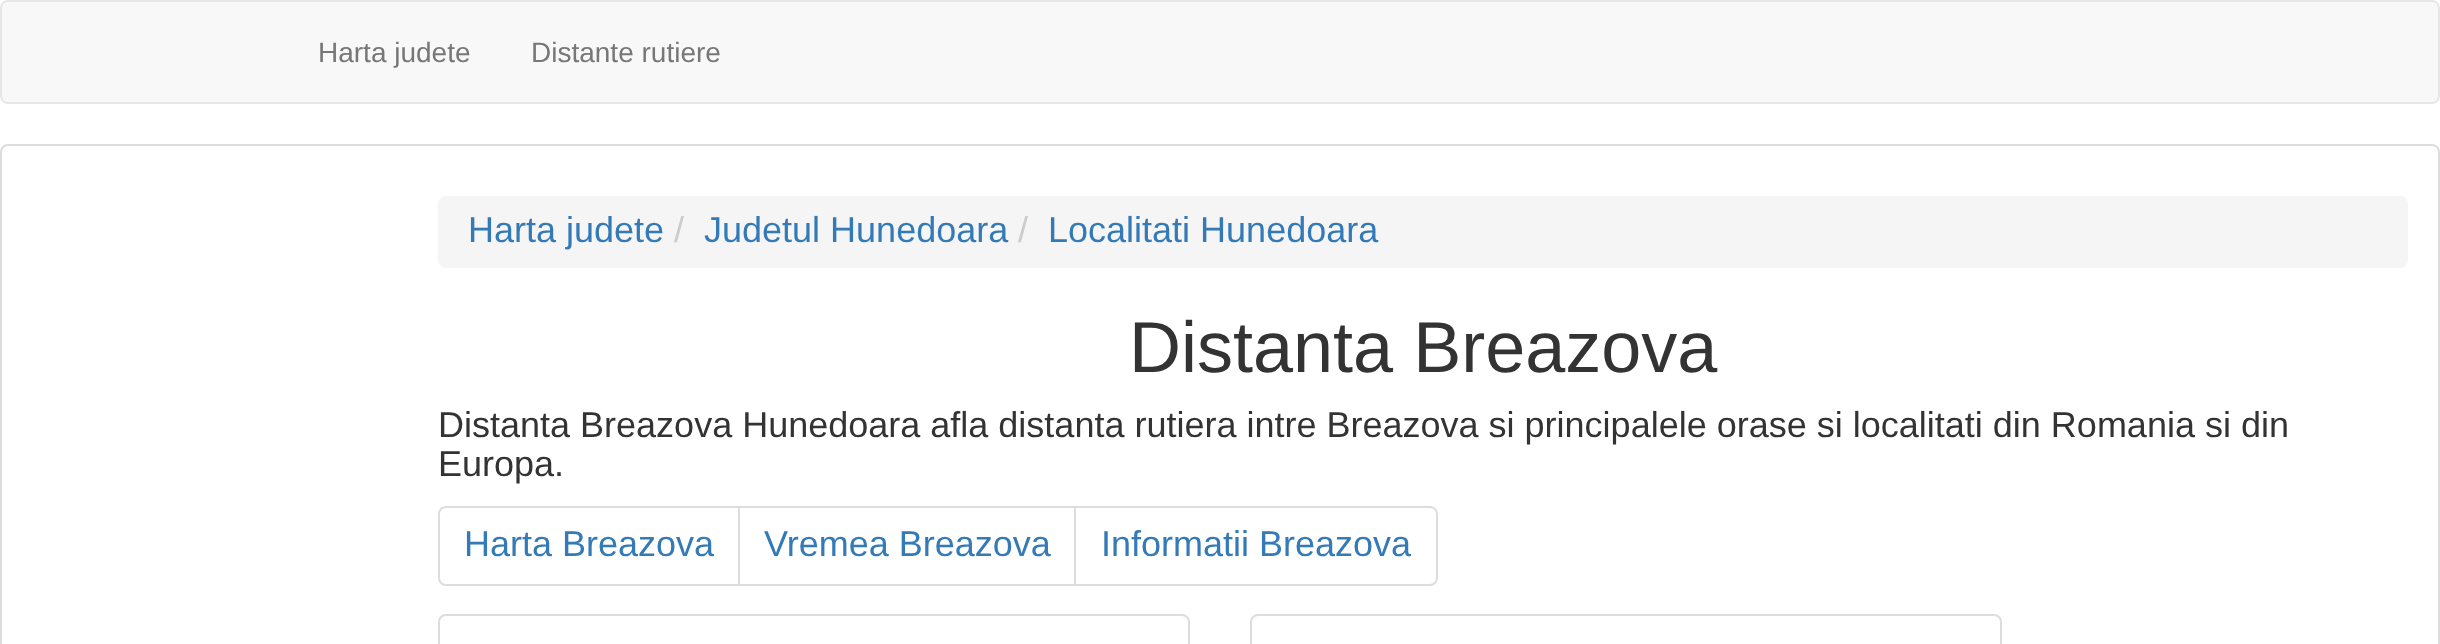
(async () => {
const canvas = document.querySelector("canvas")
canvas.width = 2440
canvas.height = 644
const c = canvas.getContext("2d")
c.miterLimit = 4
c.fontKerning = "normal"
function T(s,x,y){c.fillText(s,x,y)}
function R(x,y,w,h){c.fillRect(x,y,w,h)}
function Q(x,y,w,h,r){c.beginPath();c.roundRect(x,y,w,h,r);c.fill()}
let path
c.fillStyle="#fff"
R(0,0,2440,644)
c.fillStyle="#f8f8f8"
c.beginPath()
c.roundRect(1,1,2438,102,7)
c.fill()
c.strokeStyle="#e7e7e7"
c.lineWidth=2
c.stroke()
c.font="28px Liberation Sans"
c.fillStyle="#777"
T("Harta judete",318,62)
T("Distante rutiere",531,62)
c.beginPath()
c.roundRect(1,145,2438,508,7)
c.strokeStyle="#ddd"
c.stroke()
c.fillStyle="#f5f5f5"
Q(438,196,1970,72,8)
c.font="36px Liberation Sans"
c.fillStyle="#337ab7"
T("Harta judete",468,242)
c.fillStyle="#ccc"
T("/",674,242)
c.fillStyle="#337ab7"
T("Judetul Hunedoara",704,242)
c.fillStyle="#ccc"
T("/",1018,242)
c.fillStyle="#337ab7"
T("Localitati Hunedoara",1048,242)
c.font="72px Liberation Sans"
c.fillStyle="#333"
T("Distanta Breazova",1129,372)
c.font="36px Liberation Sans"
T("Distanta Breazova Hunedoara afla distanta rutiera intre Breazova si principalele orase si localitati din Romania si din",438,437)
T("Europa.",438,476)
c.beginPath()
c.roundRect(439,507,300,78,[7,0,0,7])
c.stroke()
c.fillStyle="#337ab7"
T("Harta Breazova",464,556)
c.strokeRect(739,507,336,78)
T("Vremea Breazova",764,556)
c.fillStyle="#fff"
c.beginPath()
c.roundRect(1075,507,362,78,[0,7,7,0])
c.fill()
c.stroke()
c.fillStyle="#337ab7"
T("Informatii Breazova",1101,556)
path = new Path2D("M446 615h736c4 0 7 3 7 7v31h-750v-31c0-4 3-7 7-7z")
c.stroke(path)
path = new Path2D("M1258 615h736c4 0 7 3 7 7v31h-750v-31c0-4 3-7 7-7z")
c.stroke(path)
})()
